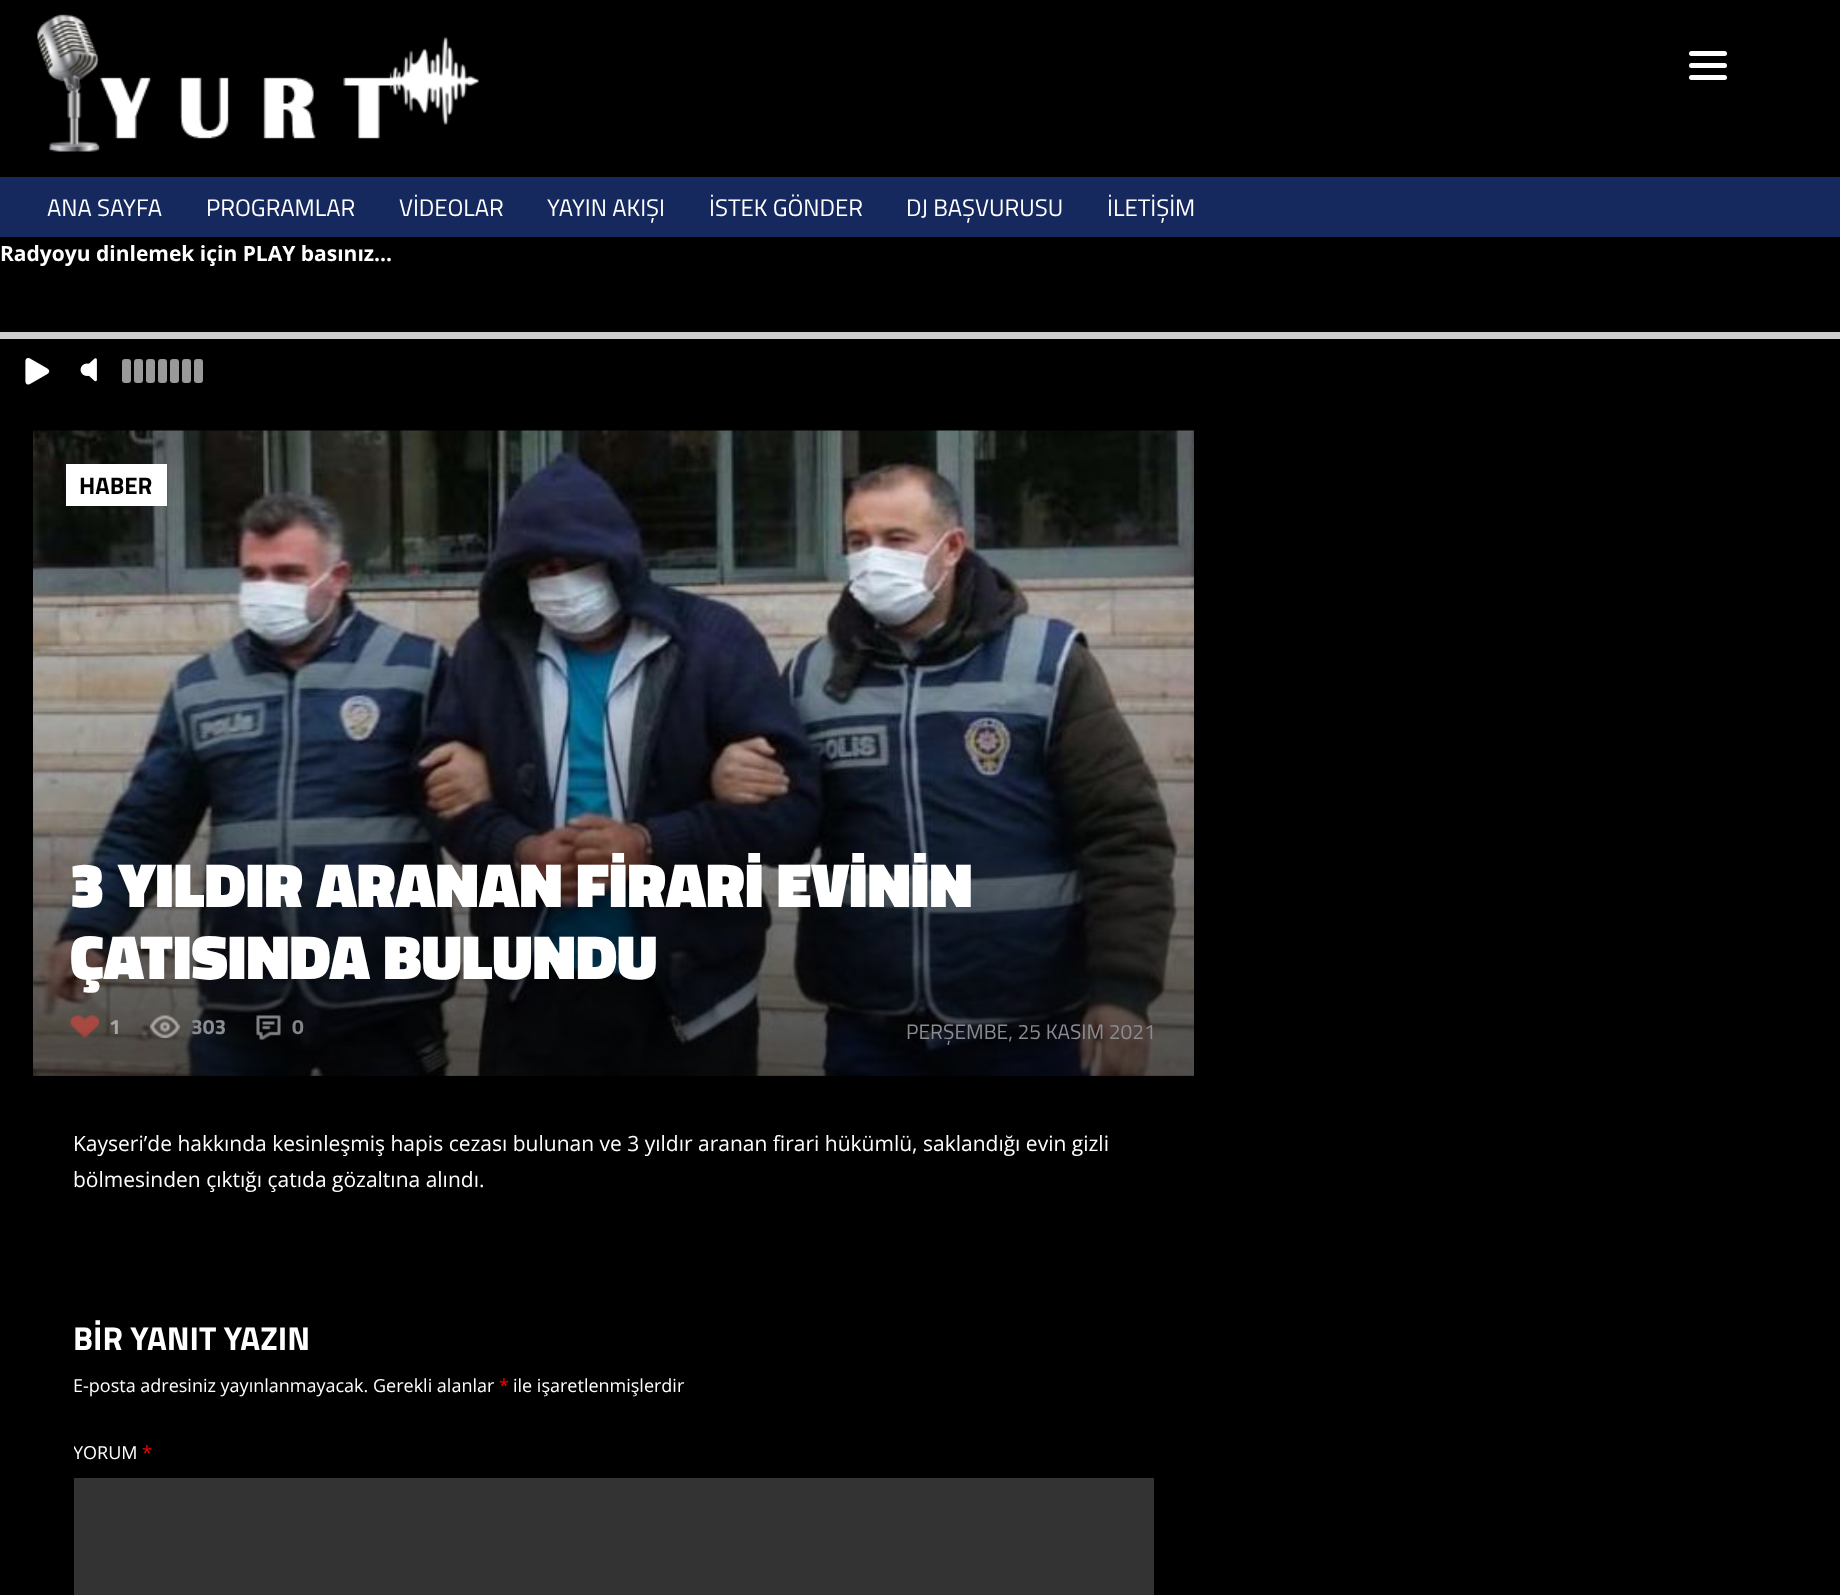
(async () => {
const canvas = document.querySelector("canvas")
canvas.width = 1840
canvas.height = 1595
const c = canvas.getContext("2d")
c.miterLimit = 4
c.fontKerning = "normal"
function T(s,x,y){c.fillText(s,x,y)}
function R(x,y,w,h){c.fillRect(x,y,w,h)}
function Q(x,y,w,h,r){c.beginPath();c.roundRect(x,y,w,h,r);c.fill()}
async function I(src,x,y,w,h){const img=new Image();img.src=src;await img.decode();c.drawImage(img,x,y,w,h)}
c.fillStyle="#000"
R(0,0,1840,1595)
c.fillStyle="#fff"
Q(1689,63,38,5,2.5)
Q(1689,51,38,5,2.5)
Q(1689,75,38,5,2.5)
await I("1.png",37,14,442,138)
c.fillStyle="#15295f"
R(0,177,1840,60)
c.font="24px Titillium Web"
c.fillStyle="#fff"
T("ANA SAYFA",47,216)
T("PROGRAMLAR",206,216)
T("VİDEOLAR",399,216)
T("YAYIN AKIŞI",547,216)
T("İSTEK GÖNDER",709,216)
T("DJ BAŞVURUSU",906,216)
T("İLETİŞİM",1107,216)
c.font="bold 21px Open Sans"
T("Radyoyu dinlemek için PLAY basınız...",0,261)
c.fillStyle="#ccc"
R(0,332,1840,7)
await I("2.png",25,358,25,27)
await I("3.png",80,358,17,24)
c.fillStyle="#999"
Q(122,359,9,24,3)
Q(134,359,9,24,3)
Q(146,359,9,24,3)
Q(158,359,9,24,3)
Q(170,359,9,24,3)
Q(182,359,9,24,3)
Q(194,359,9,24,3)
await I("4.png",33,430,1161,646)
c.fillStyle="#fff"
R(66,464,101,42)
c.font="bold 24px Titillium Web"
c.fillStyle="#000"
T("HABER",79,494)
await I("5.png",33,610,1161,466)
c.font="900 63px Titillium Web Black"
c.fillStyle="#fff"
T("3 YILDIR ARANAN FİRARİ EVİNİN",70,907)
T("ÇATISINDA BULUNDU",70,979)
await I("6.png",70,1015,29,23)
c.font="bold 21px Titillium Web"
c.fillStyle="#aaa8a5"
T("1",109,1034)
await I("7.png",150,1015,30,23)
c.fillStyle="#8a8c8f"
T("303",191,1034)
await I("8.png",256,1015,25,25)
c.fillStyle="#838486"
T("0",292,1034)
c.font="21px Titillium Web"
c.fillStyle="#8a8c8f"
T("PERŞEMBE, 25 KASIM 2021",906,1039)
c.font="21px Open Sans"
c.fillStyle="#fff"
T("Kayseri’de hakkında kesinleşmiş hapis cezası bulunan ve 3 yıldır aranan firari hükümlü, saklandığı evin gizli",73,1151)
T("bölmesinden çıktığı çatıda gözaltına alındı.",73,1187)
c.font="bold 33px Titillium Web"
T("BİR YANIT YAZIN",73,1350)
c.font="18px Open Sans"
T("E-posta adresiniz yayınlanmayacak. Gerekli alanlar",73,1392)
c.fillStyle="#f00"
T("*",499,1392)
c.fillStyle="#fff"
T("ile işaretlenmişlerdir",513,1392)
c.save()
c.beginPath()
c.rect(74,1286,1080,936)
c.clip()
T("YORUM",73,1459)
c.restore()
c.fillStyle="#f00"
T("*",142,1459)
c.fillStyle="#333"
R(74,1478,1080,117)
})()
